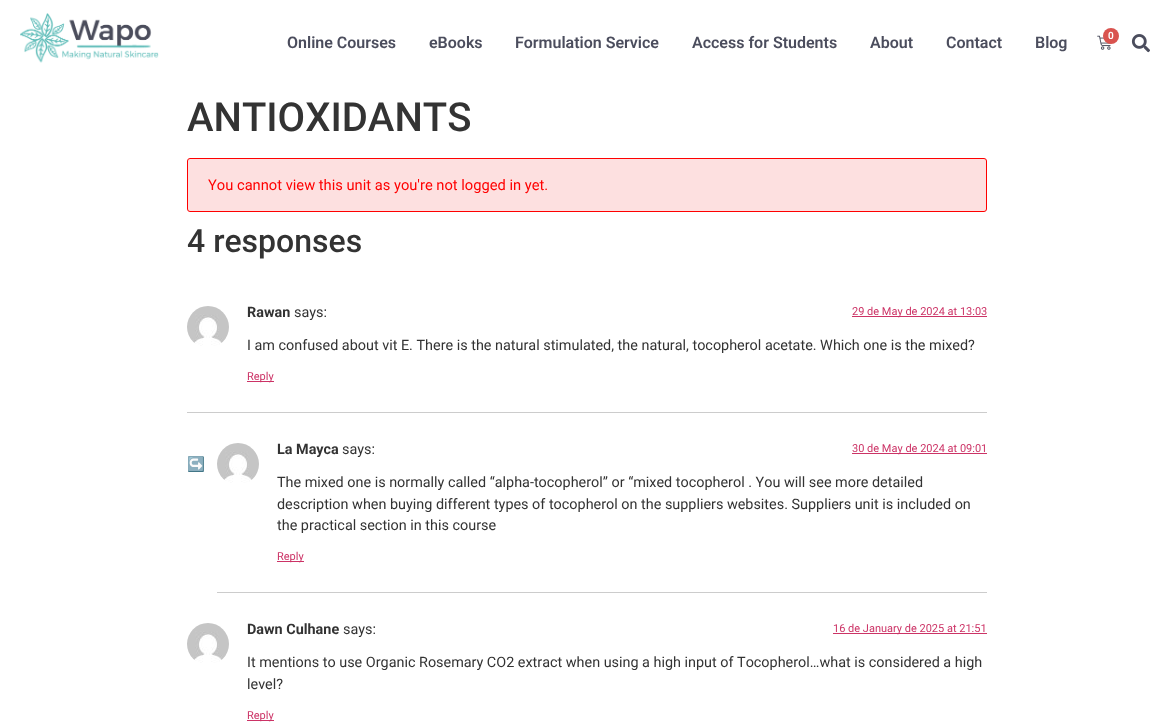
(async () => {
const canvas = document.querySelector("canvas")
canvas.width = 1174
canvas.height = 726
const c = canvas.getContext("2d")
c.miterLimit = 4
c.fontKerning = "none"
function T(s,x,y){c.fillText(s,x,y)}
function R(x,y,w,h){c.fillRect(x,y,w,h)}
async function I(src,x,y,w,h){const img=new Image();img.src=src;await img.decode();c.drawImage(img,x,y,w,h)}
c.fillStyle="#fff"
R(0,0,1174,726)
await I("1.png",20,13,139,50)
c.font="600 16px Roboto"
c.fillStyle="#4b4d5d"
T("Online Courses",287,48)
T("eBooks",429,48)
T("Formulation Service",515,48)
T("Access for Students",692,48)
T("About",870,48)
T("Contact",946,48)
T("Blog",1035,48)
await I("2.png",1097,35,14,15)
c.fillStyle="#d9534f"
c.beginPath()
c.arc(1111,36,8,0,7)
c.fill()
c.font="600 10px Roboto"
c.fillStyle="#fff"
T("0",1108,39)
await I("3.png",1131,34,19,19)
c.font="500 40px Roboto"
c.fillStyle="#333"
T("ANTIOXIDANTS",187,131)
c.fillStyle="#fde0e0"
c.beginPath()
c.roundRect(187.5,158.5,799,53,2.5)
c.fill()
c.strokeStyle="#f00"
c.stroke()
c.font="14.7px Roboto"
c.fillStyle="#f00"
T("You cannot view this unit as you're not logged in yet.",208,190)
c.font="500 32px Roboto"
c.fillStyle="#333"
T("4 responses",187,252)
c.fillStyle="#ccc"
R(187,412,800,1)
await I("4.png",187,306,42,40)
c.font="bold 14.4px Roboto"
c.fillStyle="#333"
T("Rawan",247,317)
c.font="14.4px Roboto"
T("says:",294,317)
c.fillStyle="#c36"
R(852,316,135,1)
c.font="11px Roboto"
T("29 de May de 2024 at 13:03",852,315)
c.font="14.4px Roboto"
c.fillStyle="#333"
T("I am confused about vit E. There is the natural stimulated, the natural, tocopherol acetate. Which one is the mixed?",247,350)
c.fillStyle="#c36"
R(247,381,27,1)
c.font="11px Roboto"
T("Reply",247,380)
c.font="14.4px Noto Color Emoji"
c.fillStyle="#333"
T("↪",187,469)
c.fillStyle="#ccc"
R(217,592,770,1)
await I("5.png",217,443,42,40)
c.font="bold 14.4px Roboto"
c.fillStyle="#333"
T("La Mayca",277,454)
c.font="14.4px Roboto"
T("says:",342,454)
c.fillStyle="#c36"
R(852,453,135,1)
c.font="11px Roboto"
T("30 de May de 2024 at 09:01",852,452)
c.font="14.4px Roboto"
c.fillStyle="#333"
T("The mixed one is normally called “alpha-tocopherol” or “mixed tocopherol . You will see more detailed",277,487)
T("description when buying different types of tocopherol on the suppliers websites. Suppliers unit is included on",277,509)
T("the practical section in this course",277,530)
c.fillStyle="#c36"
R(277,561,27,1)
c.font="11px Roboto"
T("Reply",277,560)
await I("4.png",187,623,42,40)
c.font="bold 14.4px Roboto"
c.fillStyle="#333"
T("Dawn Culhane",247,634)
c.font="14.4px Roboto"
T("says:",343,634)
c.fillStyle="#c36"
R(833,633,154,1)
c.font="11px Roboto"
T("16 de January de 2025 at 21:51",833,632)
c.font="14.4px Roboto"
c.fillStyle="#333"
T("It mentions to use Organic Rosemary CO2 extract when using a high input of Tocopherol…what is considered a high",247,667)
T("level?",247,689)
c.fillStyle="#c36"
R(247,720,27,1)
c.font="11px Roboto"
T("Reply",247,719)
})()
